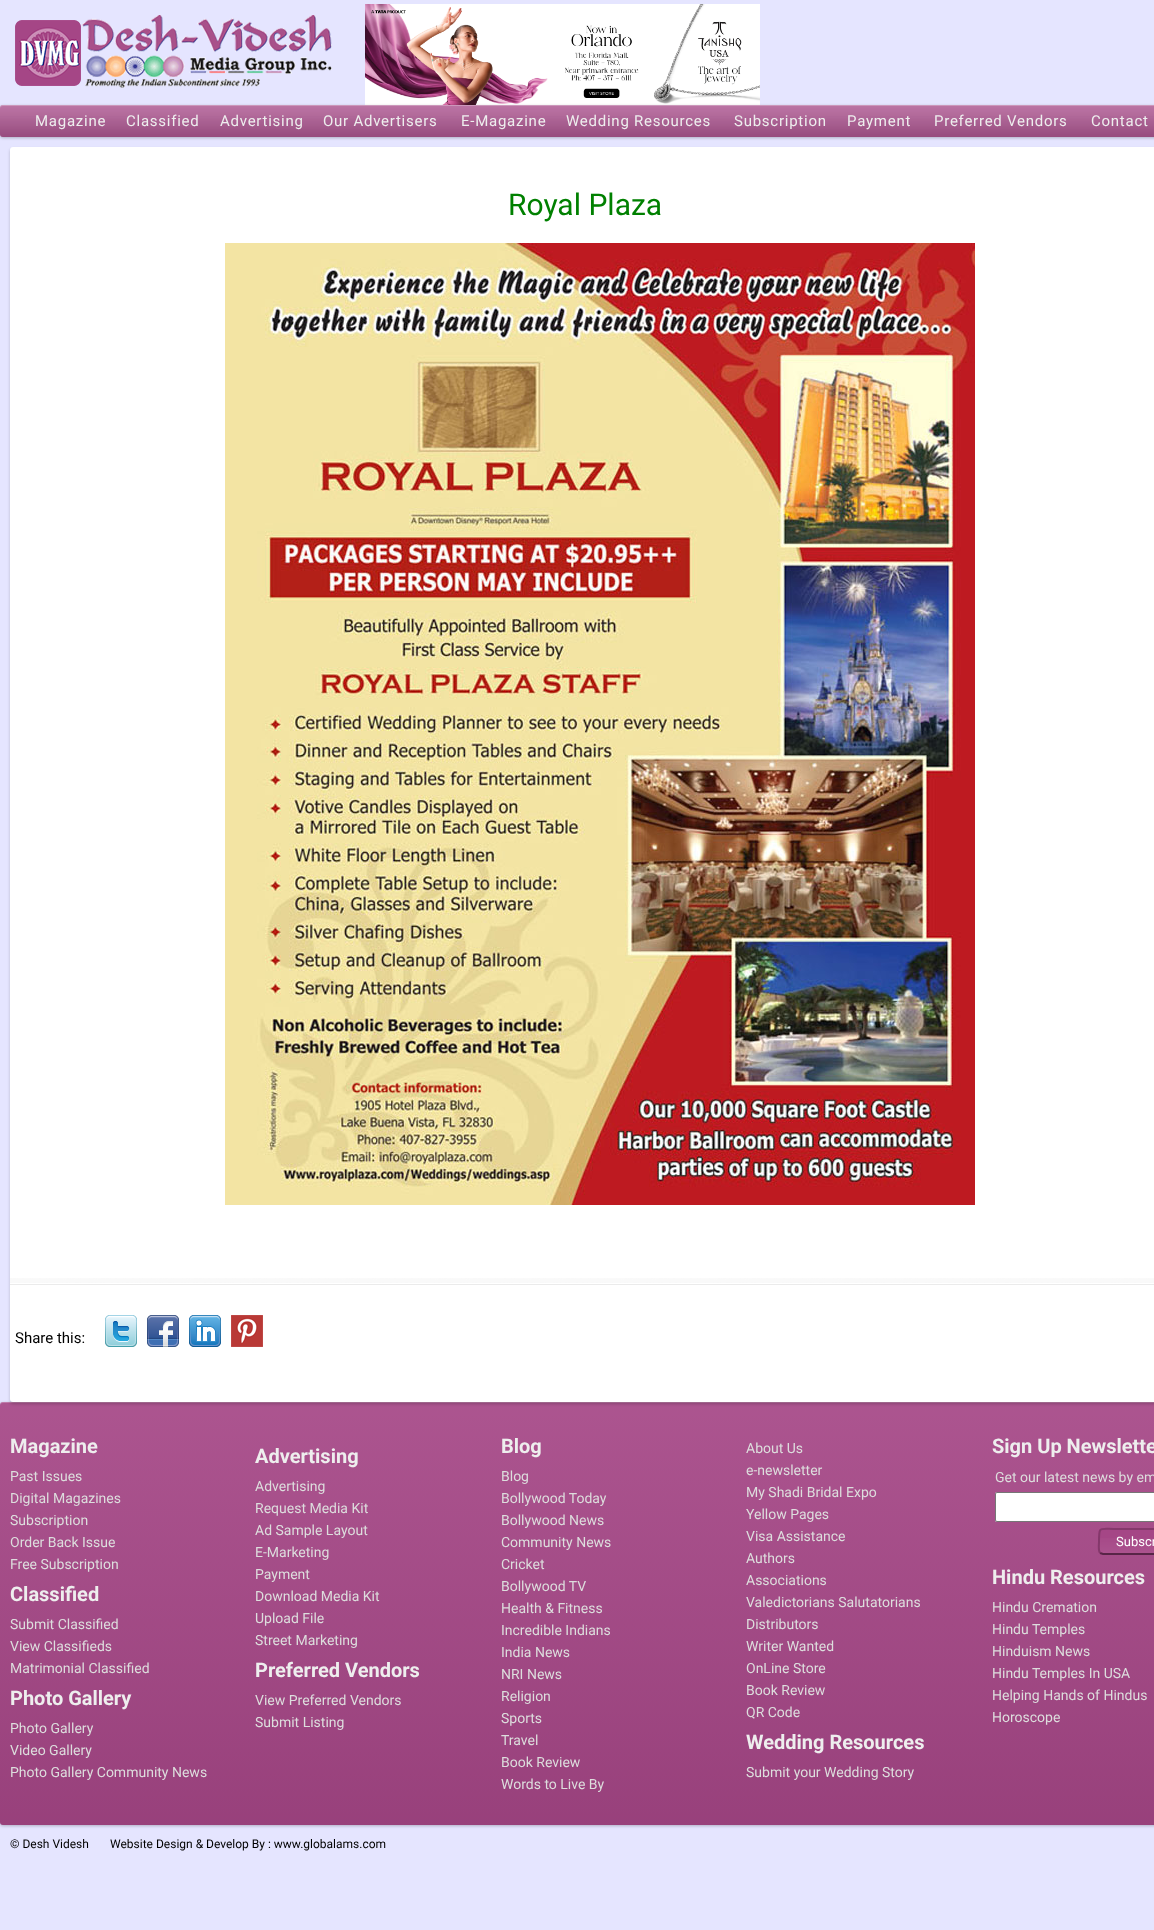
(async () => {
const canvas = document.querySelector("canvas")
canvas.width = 1154
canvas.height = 1930
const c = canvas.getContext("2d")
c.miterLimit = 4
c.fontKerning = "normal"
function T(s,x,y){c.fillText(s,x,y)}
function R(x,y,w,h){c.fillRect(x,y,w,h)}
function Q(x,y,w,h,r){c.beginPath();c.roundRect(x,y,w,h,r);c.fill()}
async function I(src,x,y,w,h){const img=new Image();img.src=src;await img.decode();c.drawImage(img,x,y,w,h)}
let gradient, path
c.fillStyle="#e5e5ff"
R(0,0,1154,1930)
await I("1.png",15,15,317,73)
await I("2.png",365,4,395,101)
c.fillStyle="#0000003b"
c.filter="blur(1.5px)"
c.beginPath()
c.roundRect(0,106,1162,32,3)
c.fill()
c.filter="none"
c.fillStyle="#a54686"
Q(0,105,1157,32,3)
await I("3.png",0,105,1154,32)
c.fillStyle="#ffffff3b"
path = new Path2D("M3 106h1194c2 0 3 1 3 3v-1c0-2-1-3-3-3h-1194c-2 0-3 1-3 3v1c0-2 1-3 3-3z")
c.fill(path)
c.letterSpacing="0.75px"
c.font="15px Roboto"
c.fillStyle="#eee"
T("Magazine",35,126)
T("Classified",126,126)
T("Advertising",220,126)
T("Our Advertisers",323,126)
T("E-Magazine",461,126)
T("Wedding Resources",566,126)
T("Subscription",734,126)
T("Payment",847,126)
T("Preferred Vendors",934,126)
T("Contact",1091,126)
c.fillStyle="#0000003b"
c.filter="blur(1.5px)"
c.beginPath()
c.roundRect(0,1403,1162,423,3)
c.fill()
c.filter="none"
c.fillStyle="#a54686"
Q(0,1402,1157,423,3)
gradient = c.createLinearGradient(600,1402,600,1825)
gradient.addColorStop(0,"#ffffff14")
gradient.addColorStop(1,"#00000014")
c.fillStyle = gradient
Q(0,1402,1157,423,3)
c.fillStyle="#ffffff3b"
path = new Path2D("M3 1403h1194c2 0 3 1 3 3v-1c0-2-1-3-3-3h-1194c-2 0-3 1-3 3v1c0-2 1-3 3-3z")
c.fill(path)
c.fillStyle="#00000033"
c.filter="blur(1.5px)"
c.beginPath()
c.roundRect(10,149,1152,1255,3)
c.fill()
c.filter="none"
c.fillStyle="#fff"
Q(10,147,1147,1255,3)
c.letterSpacing="0px"
c.font="30px Roboto"
c.fillStyle="#008000"
T("Royal Plaza",508,215)
await I("4.png",225,243,750,962)
await I("5.png",10,1278,1144,7)
c.font="15px Roboto"
c.fillStyle="#000"
T("Share this:",15,1343)
await I("6.png",105,1315,32,32)
await I("7.png",147,1315,32,32)
await I("8.png",189,1315,32,32)
await I("9.png",231,1315,32,32)
c.font="bold 20px Roboto"
c.fillStyle="#eee"
T("Magazine",10,1453)
c.font="14px Roboto"
c.fillStyle="#ddd"
T("Past Issues",10,1481)
T("Digital Magazines",10,1503)
T("Subscription",10,1525)
T("Order Back Issue",10,1547)
T("Free Subscription",10,1569)
c.font="bold 20px Roboto"
c.fillStyle="#eee"
T("Classified",10,1601)
c.font="14px Roboto"
c.fillStyle="#ddd"
T("Submit Classified",10,1629)
T("View Classifieds",10,1651)
T("Matrimonial Classified",10,1673)
c.font="bold 20px Roboto"
c.fillStyle="#eee"
T("Photo Gallery",10,1705)
c.font="14px Roboto"
c.fillStyle="#ddd"
T("Photo Gallery",10,1733)
T("Video Gallery",10,1755)
T("Photo Gallery Community News",10,1777)
c.font="bold 20px Roboto"
c.fillStyle="#eee"
T("Advertising",255,1463)
c.font="14px Roboto"
c.fillStyle="#ddd"
T("Advertising",255,1491)
T("Request Media Kit",255,1513)
T("Ad Sample Layout",255,1535)
T("E-Marketing",255,1557)
T("Payment",255,1579)
T("Download Media Kit",255,1601)
T("Upload File",255,1623)
T("Street Marketing",255,1645)
c.font="bold 20px Roboto"
c.fillStyle="#eee"
T("Preferred Vendors",255,1677)
c.font="14px Roboto"
c.fillStyle="#ddd"
T("View Preferred Vendors",255,1705)
T("Submit Listing",255,1727)
c.font="bold 20px Roboto"
c.fillStyle="#eee"
T("Blog",501,1453)
c.font="14px Roboto"
c.fillStyle="#ddd"
T("Blog",501,1481)
T("Bollywood Today",501,1503)
T("Bollywood News",501,1525)
T("Community News",501,1547)
T("Cricket",501,1569)
T("Bollywood TV",501,1591)
T("Health & Fitness",501,1613)
T("Incredible Indians",501,1635)
T("India News",501,1657)
T("NRI News",501,1679)
T("Religion",501,1701)
T("Sports",501,1723)
T("Travel",501,1745)
T("Book Review",501,1767)
T("Words to Live By",501,1789)
T("About Us",746,1453)
T("e-newsletter",746,1475)
T("My Shadi Bridal Expo",746,1497)
T("Yellow Pages",746,1519)
T("Visa Assistance",746,1541)
T("Authors",746,1563)
T("Associations",746,1585)
T("Valedictorians Salutatorians",746,1607)
T("Distributors",746,1629)
T("Writer Wanted",746,1651)
T("OnLine Store",746,1673)
T("Book Review",746,1695)
T("QR Code",746,1717)
c.font="bold 20px Roboto"
c.fillStyle="#eee"
T("Wedding Resources",746,1749)
c.font="14px Roboto"
c.fillStyle="#ddd"
T("Submit your Wedding Story",746,1777)
c.font="bold 20px Roboto"
c.fillStyle="#eee"
T("Sign Up Newslette",992,1453)
c.font="14px Roboto"
c.fillStyle="#ddd"
T("Get our latest news by em",995,1482)
c.fillStyle="#fff"
path = new Path2D("M997 1492h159v30h-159c-1 0-2-1-2-2v-26c0-1 1-2 2-2z")
c.fill(path)
c.beginPath()
c.roundRect(995.5,1492.5,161,29,1.5)
c.strokeStyle="#767676"
c.stroke()
c.fillStyle="#a54686"
Q(1098,1528,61,27,5)
await I("10.png",1098,1538,56,17)
path = new Path2D("M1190 1530c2 2.5 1 8.5 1 11.5c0 16 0 12.5-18 12.5h-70l-3-1")
c.strokeStyle="#582547"
c.lineWidth=2
c.stroke(path)
path = new Path2D("M1100 1553c-2-2.5-1-8.5-1-11.5c0-16 0-12.5 18-12.5h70l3 1")
c.strokeStyle="#84386b"
c.stroke(path)
c.font="13px Roboto"
c.fillStyle="#fff"
T("Subscr",1116,1546)
c.font="bold 20px Roboto"
c.fillStyle="#eee"
T("Hindu Resources",992,1584)
c.font="14px Roboto"
c.fillStyle="#ddd"
T("Hindu Cremation",992,1612)
T("Hindu Temples",992,1634)
T("Hinduism News",992,1656)
T("Hindu Temples In USA",992,1678)
T("Helping Hands of Hindus",992,1700)
T("Horoscope",992,1722)
c.font="12px Roboto"
c.fillStyle="#000"
T("© Desh Videsh",10,1848)
T("Website Design & Develop By : www.globalams.com",110,1848)
})()
